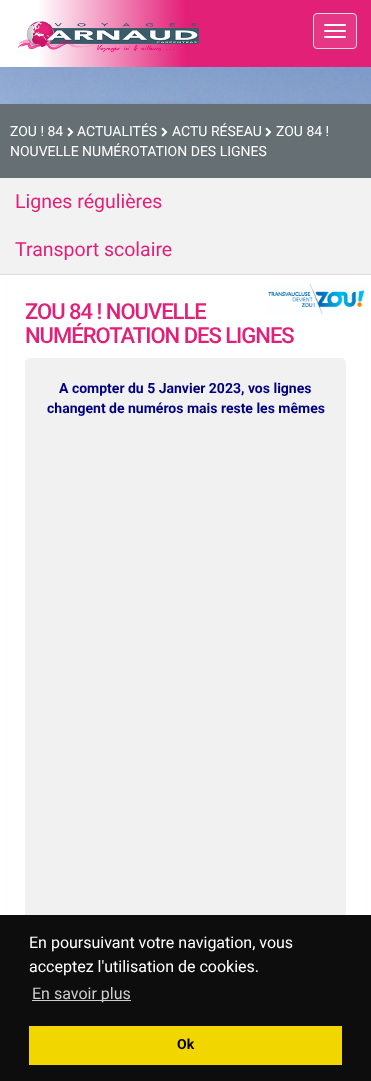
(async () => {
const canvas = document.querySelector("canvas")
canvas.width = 371
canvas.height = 1081
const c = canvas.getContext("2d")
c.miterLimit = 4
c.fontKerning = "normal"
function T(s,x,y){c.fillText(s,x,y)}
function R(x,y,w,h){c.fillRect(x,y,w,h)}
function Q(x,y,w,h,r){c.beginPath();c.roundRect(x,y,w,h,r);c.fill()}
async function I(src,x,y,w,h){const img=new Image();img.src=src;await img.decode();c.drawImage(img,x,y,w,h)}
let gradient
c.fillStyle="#fff"
R(0,0,371,1081)
await I("1.png",0,67,371,37)
gradient = c.createLinearGradient(0,34,371,33)
gradient.addColorStop(.1,"#fff")
gradient.addColorStop(.5,"#e32078")
gradient.addColorStop(1,"#e32078")
c.fillStyle = gradient
R(39,0,332,67)
await I("2.png",18,21,181,32)
c.fillStyle="#e63686"
c.beginPath()
c.roundRect(313.5,13.5,43,35,3.5)
c.fill()
c.strokeStyle="#ddd"
c.stroke()
c.fillStyle="#fff"
Q(324,24,22,2,1)
Q(324,30,22,2,1)
Q(324,36,22,2,1)
c.fillStyle="#0000002b"
c.filter="blur(5px)"
c.beginPath()
c.rect(16,108,341,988)
c.fill()
c.filter="none"
c.fillStyle="#656f74"
R(0,104,371,74)
c.font="14px Roboto"
c.fillStyle="#fff"
T("ZOU ! 84",10,136)
await I("3.png",67,127,7,10)
T("ACTUALITÉS",77,136)
await I("3.png",161,127,7,10)
T("ACTU RÉSEAU",172,136)
await I("3.png",265,127,7,10)
T("ZOU 84 !",276,136)
T("NOUVELLE NUMÉROTATION DES LIGNES",10,156)
c.fillStyle="#f2f2f2"
R(0,178,371,96)
c.fillStyle="#dcdcdc"
R(0,274,371,1)
c.font="19.5px Roboto"
c.fillStyle="#e32078"
T("Lignes régulières",15,208)
T("Transport scolaire",15,256)
c.fillStyle="#fff"
R(8,275,357,806)
await I("4.png",267,284,98,31)
c.letterSpacing="-1px"
c.font="500 22px Roboto"
c.fillStyle="#e32078"
T("ZOU 84 ! NOUVELLE",25,319)
T("NUMÉROTATION DES LIGNES",25,343)
c.fillStyle="#f1f1f1"
Q(25,358,321,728,5)
c.letterSpacing="0px"
c.font="bold 14px Roboto"
c.fillStyle="#000080"
T("A compter du 5 Janvier 2023, vos lignes",59,393)
T("changent de numéros mais reste les mêmes",47,413)
c.fillStyle="#000000f2"
R(0,915,371,166)
c.font="16px Roboto"
c.fillStyle="#fff"
T("En poursuivant votre navigation, vous",29,948)
T("acceptez l'utilisation de cookies.",29,972)
c.fillStyle="#cecece"
R(32,1000,99,1)
T("En savoir plus",32,999)
c.fillStyle="#f1d600"
R(29,1026,313,39)
c.font="bold 14px Roboto"
c.fillStyle="#000"
T("Ok",177,1049)
})()
